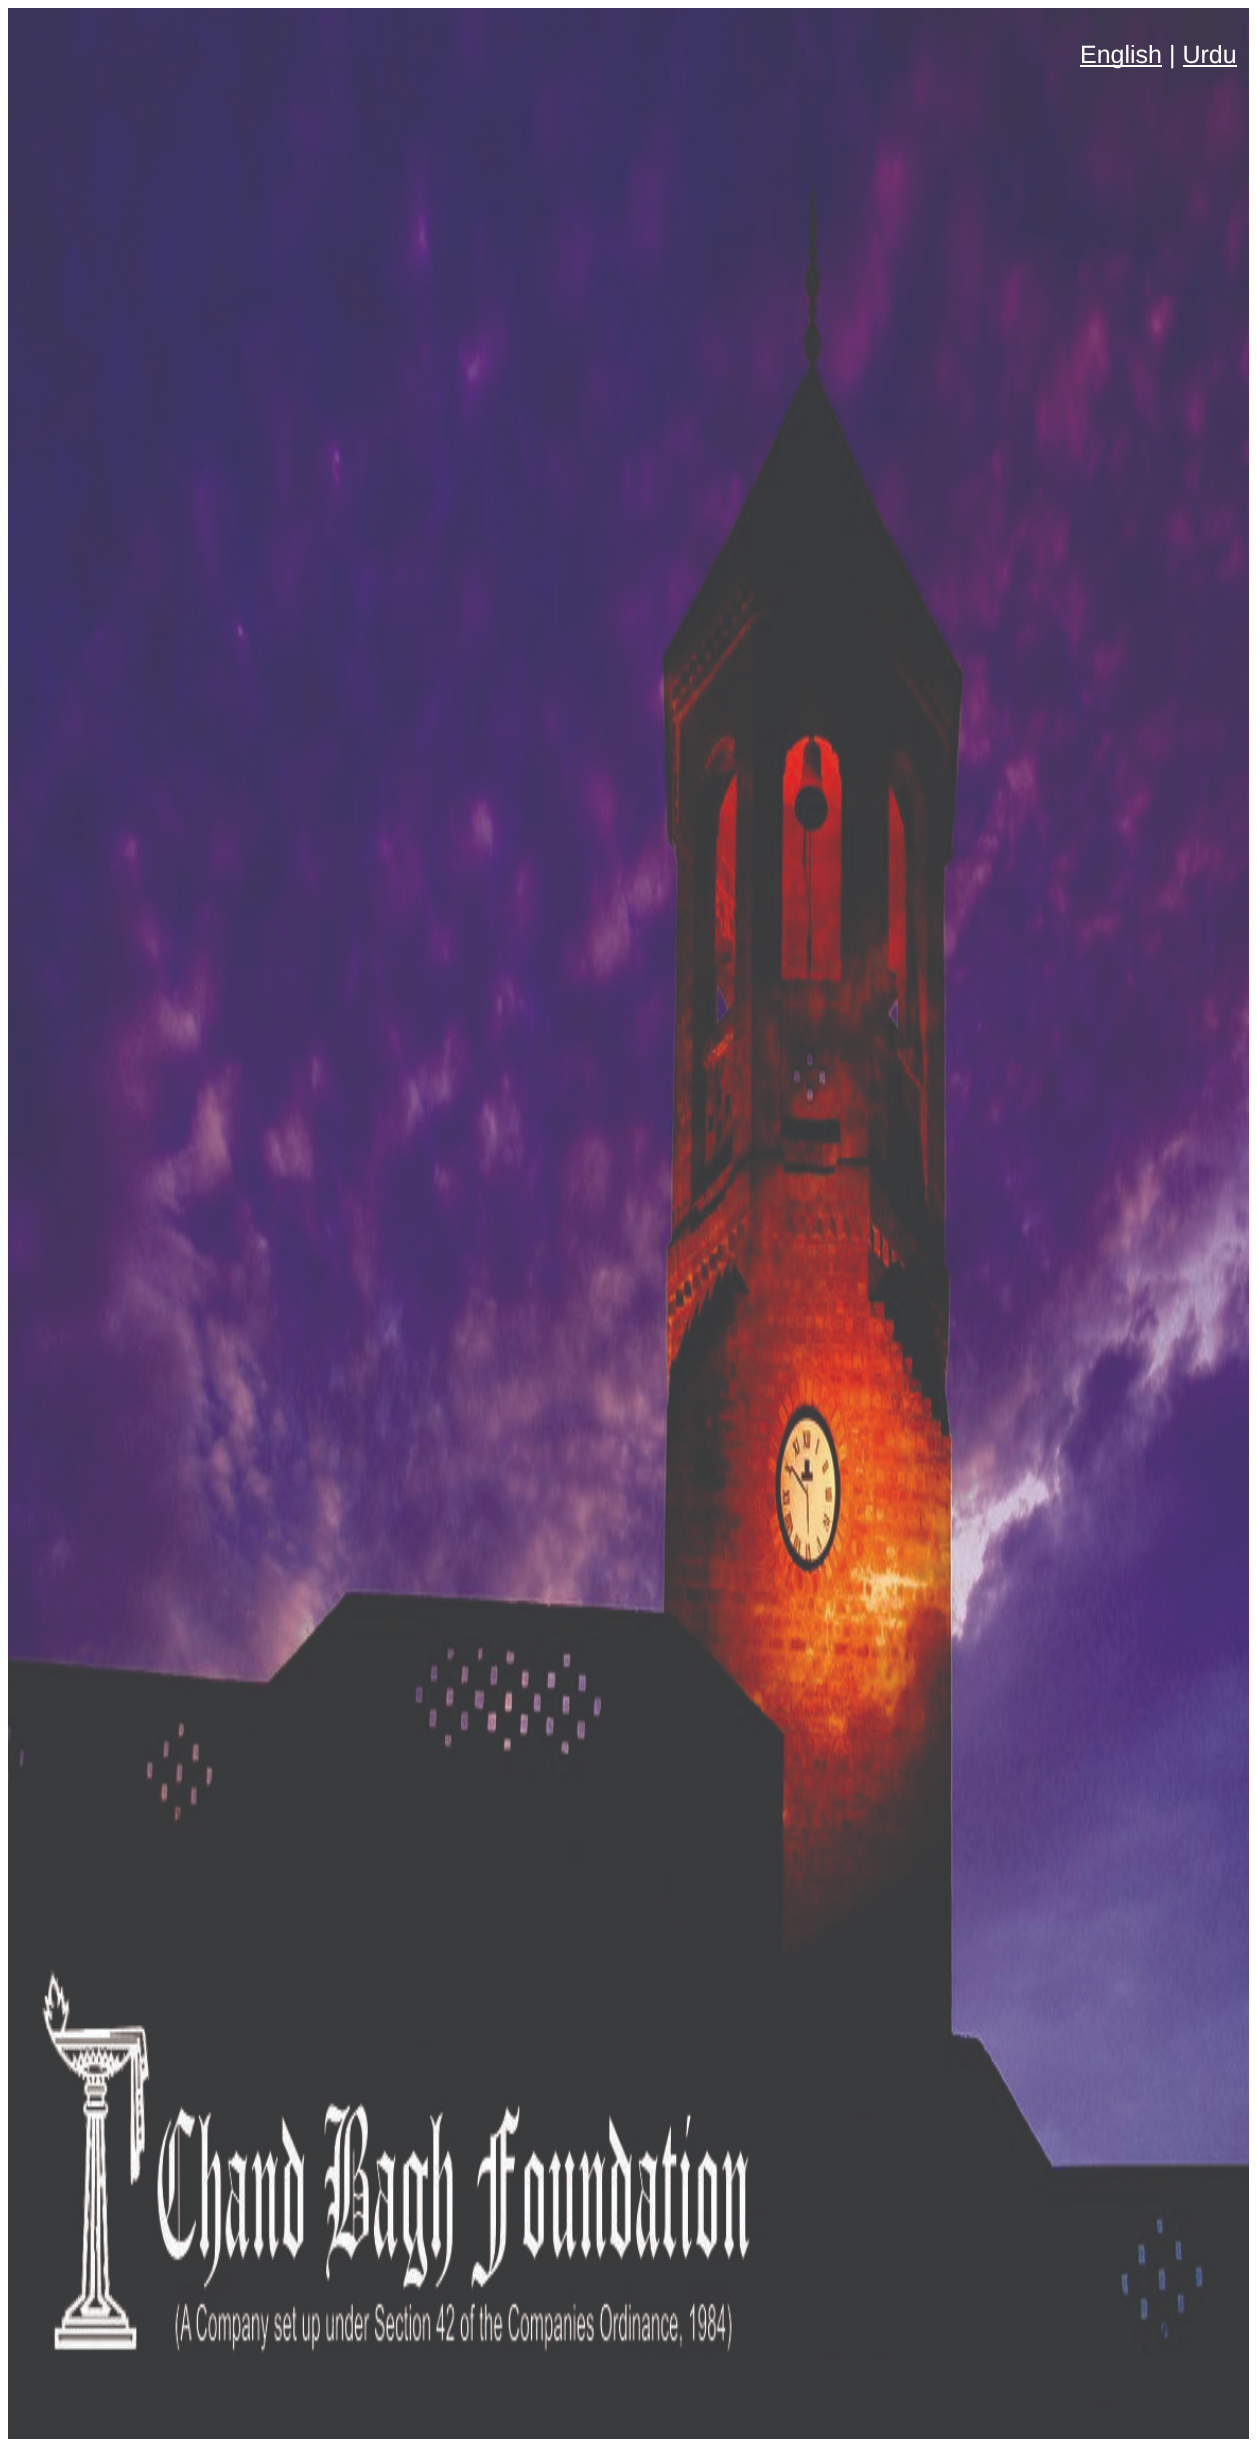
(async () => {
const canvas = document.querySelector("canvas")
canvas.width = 1257
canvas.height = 2447
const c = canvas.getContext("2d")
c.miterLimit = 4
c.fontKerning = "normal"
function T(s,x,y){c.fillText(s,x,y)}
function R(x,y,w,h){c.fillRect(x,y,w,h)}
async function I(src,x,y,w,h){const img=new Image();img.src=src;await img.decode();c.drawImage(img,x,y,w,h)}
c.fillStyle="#fff"
R(0,0,1257,2447)
await I("1.png",8,8,1241,2431)
R(1080,65,82,2)
c.font="25px Liberation Sans"
T("English | Urdu",1080,63)
R(1183,65,54,2)
})()
